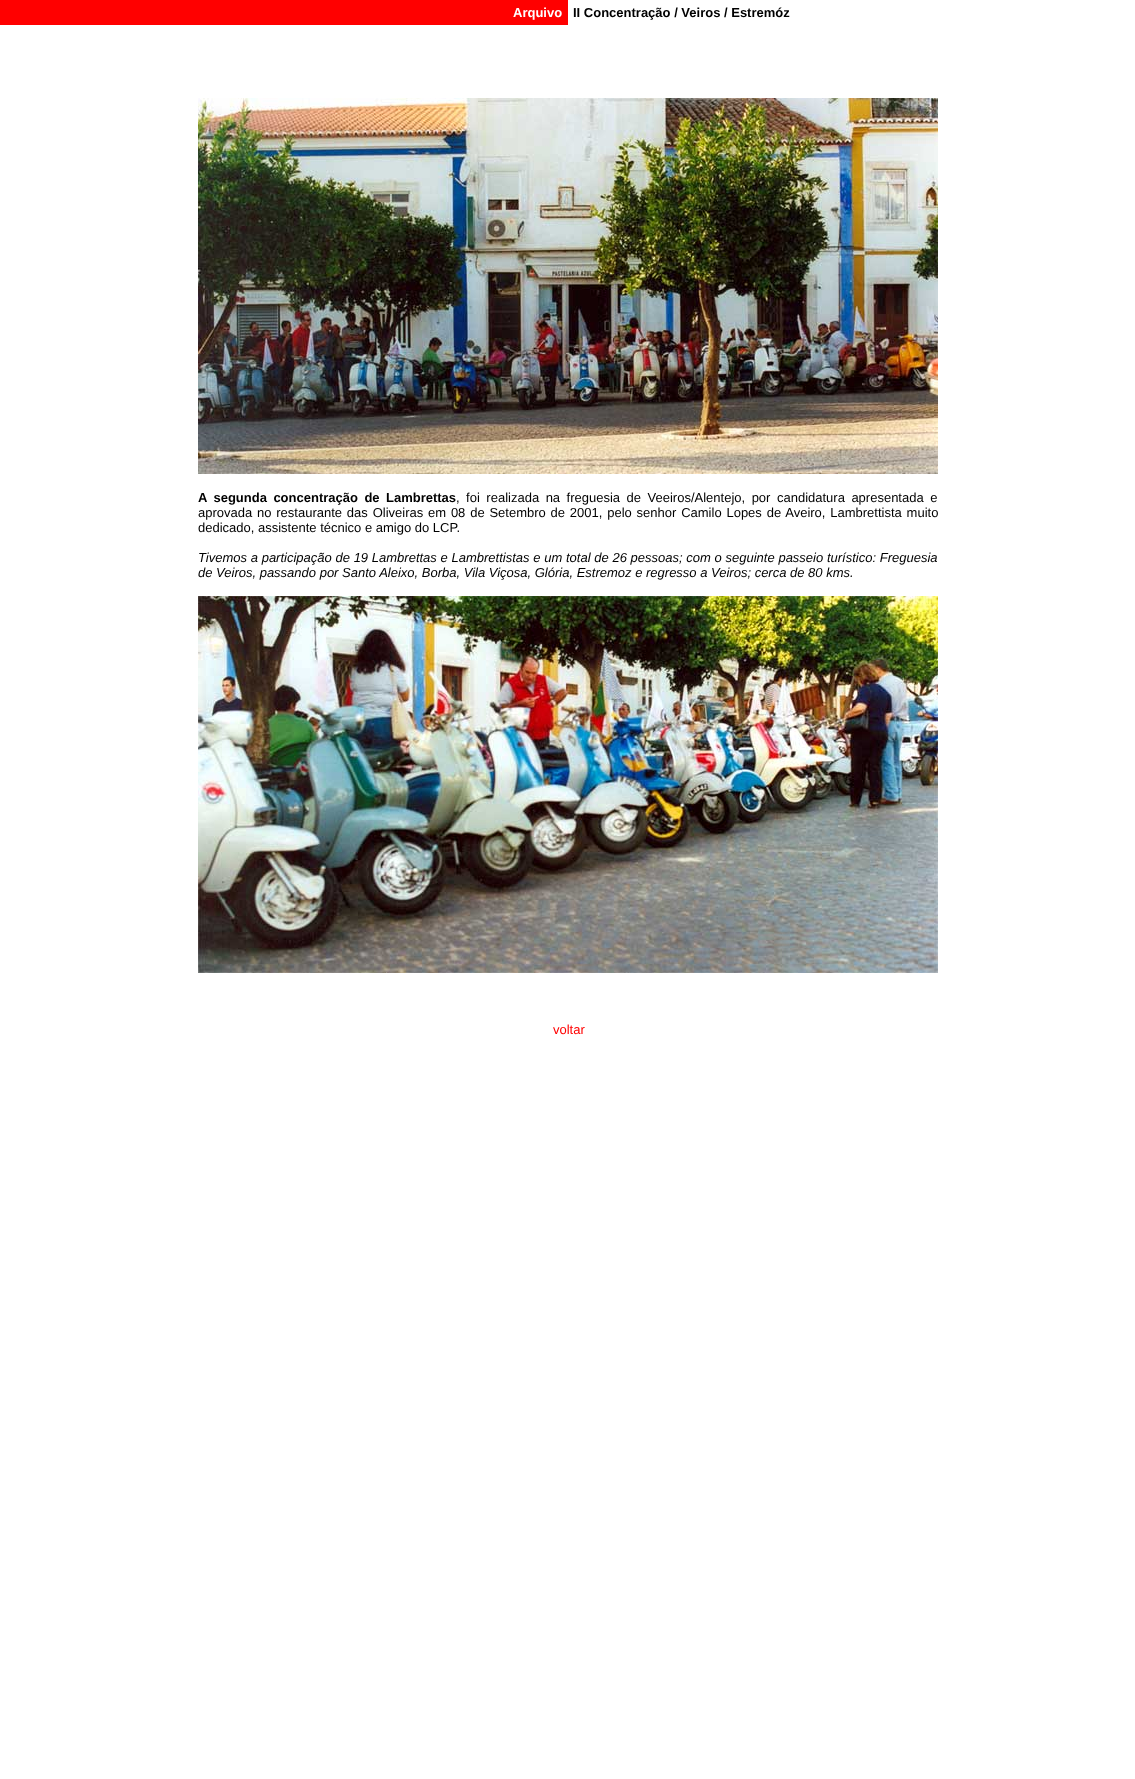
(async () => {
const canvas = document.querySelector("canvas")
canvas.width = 1135
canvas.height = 1779
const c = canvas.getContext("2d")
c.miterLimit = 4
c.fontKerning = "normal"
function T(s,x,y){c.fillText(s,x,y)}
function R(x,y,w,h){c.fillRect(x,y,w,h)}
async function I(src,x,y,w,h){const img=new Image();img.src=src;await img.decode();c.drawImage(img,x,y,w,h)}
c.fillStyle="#fff"
R(0,0,1135,1779)
c.fillStyle="#f00"
R(0,0,568,25)
c.font="bold 13px Liberation Sans"
c.fillStyle="#fff"
T("Arquivo",513,17)
c.fillStyle="#000"
T("II Concentração / Veiros / Estremóz",573,17)
await I("1.png",198,98,740,376)
c.wordSpacing="2.9px"
T("A segunda concentração de",198,502)
c.wordSpacing="0px"
T("Lambrettas",386,502)
c.wordSpacing="2.9px"
c.font="13px Liberation Sans"
T(", foi realizada na freguesia de Veeiros/Alentejo, por candidatura apresentada e",456,502)
c.wordSpacing="1.2px"
T("aprovada no restaurante das Oliveiras em 08 de Setembro de 2001, pelo senhor Camilo Lopes de Aveiro, Lambrettista muito",198,517)
c.wordSpacing="0px"
T("dedicado, assistente técnico e amigo do LCP.",198,532)
c.wordSpacing="0.1px"
c.font="italic 13px Liberation Sans"
T("Tivemos a participação de 19 Lambrettas e Lambrettistas e um total de 26 pessoas; com o seguinte passeio turístico: Freguesia",198,562)
c.wordSpacing="0px"
T("de Veiros, passando por Santo Aleixo, Borba, Vila Viçosa, Glória, Estremoz e regresso a Veiros; cerca de 80 kms.",198,577)
await I("2.png",198,596,740,377)
c.font="13px Liberation Sans"
c.fillStyle="#f00"
T("voltar",553,1034)
})()
